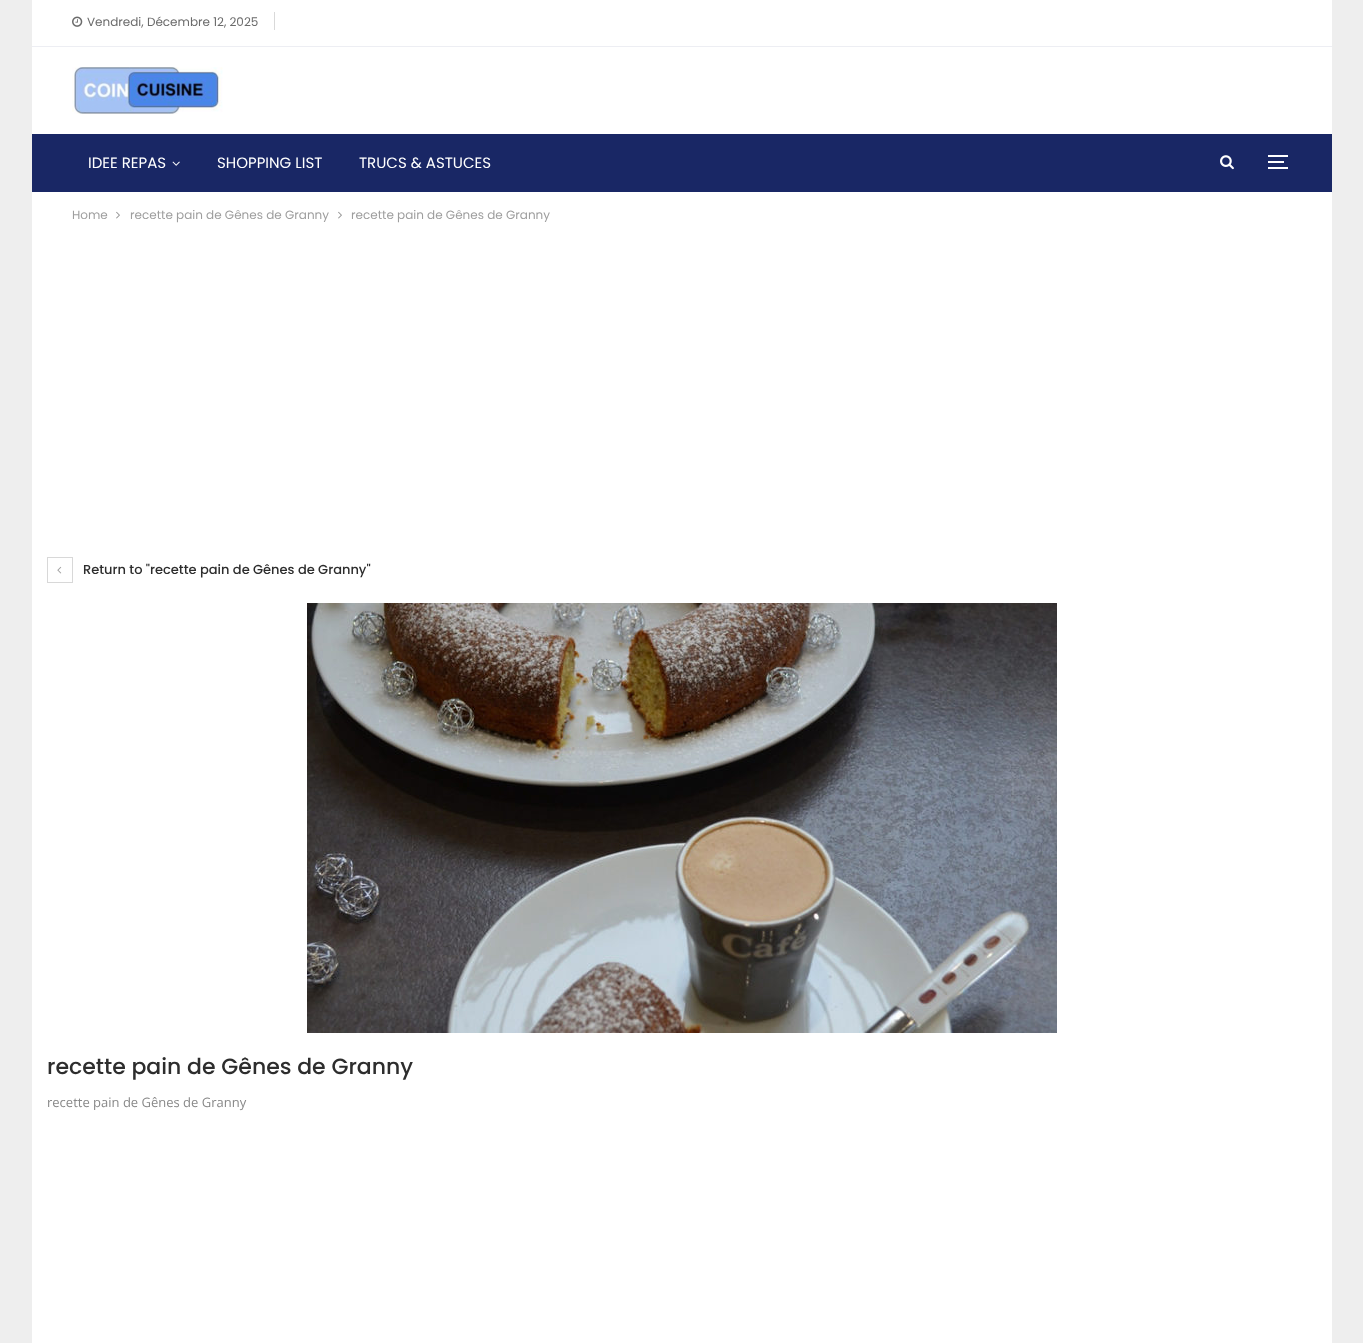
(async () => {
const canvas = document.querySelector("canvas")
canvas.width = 1363
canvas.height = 1343
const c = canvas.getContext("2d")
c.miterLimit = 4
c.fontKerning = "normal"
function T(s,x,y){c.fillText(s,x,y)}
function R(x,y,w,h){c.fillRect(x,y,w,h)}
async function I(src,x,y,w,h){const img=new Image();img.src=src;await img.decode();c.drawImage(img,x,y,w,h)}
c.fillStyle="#eee"
R(0,0,1363,1343)
c.fillStyle="#fff"
R(32,0,1300,1343)
c.fillStyle="#edeef3"
R(32,46,1300,1)
await I("1.png",72,16,11,11)
c.font="12px Poppins"
c.fillStyle="#6b6b6b"
T("Vendredi, Décembre 12, 2025",87,26)
c.fillStyle="#d9d9d9"
R(274,12,1,18)
await I("2.png",72,67,151,47)
c.fillStyle="#192765"
R(32,134,1300,58)
c.font="15px Poppins"
c.fillStyle="#fff"
T("IDEE REPAS",88,168)
await I("3.png",172,161,8,5)
T("SHOPPING LIST",217,168)
T("TRUCS & ASTUCES",359,168)
await I("4.png",1220,155,14,15)
R(1268,161,16,2)
R(1268,155,20,2)
R(1268,167,20,2)
c.font="12px Poppins"
c.fillStyle="#9e9e9e"
T("Home",72,219)
await I("5.png",116,211,4,8)
T("recette pain de Gênes de Granny",130,219)
await I("5.png",338,211,4,8)
T("recette pain de Gênes de Granny",351,219)
c.strokeStyle="#d8d8d8"
c.strokeRect(47.5,557.5,25,25)
await I("6.png",57,566,5,8)
c.font="500 13px Poppins"
c.fillStyle="#2d2d2d"
T("Return to \"recette pain de Gênes de Granny\"",83,574)
await I("7.png",307,603,750,430)
c.font="500 22px Poppins"
T("recette pain de Gênes de Granny",47,1074)
c.font="13px Open Sans"
c.fillStyle="#888"
T("recette pain de Gênes de Granny",47,1107)
})()
